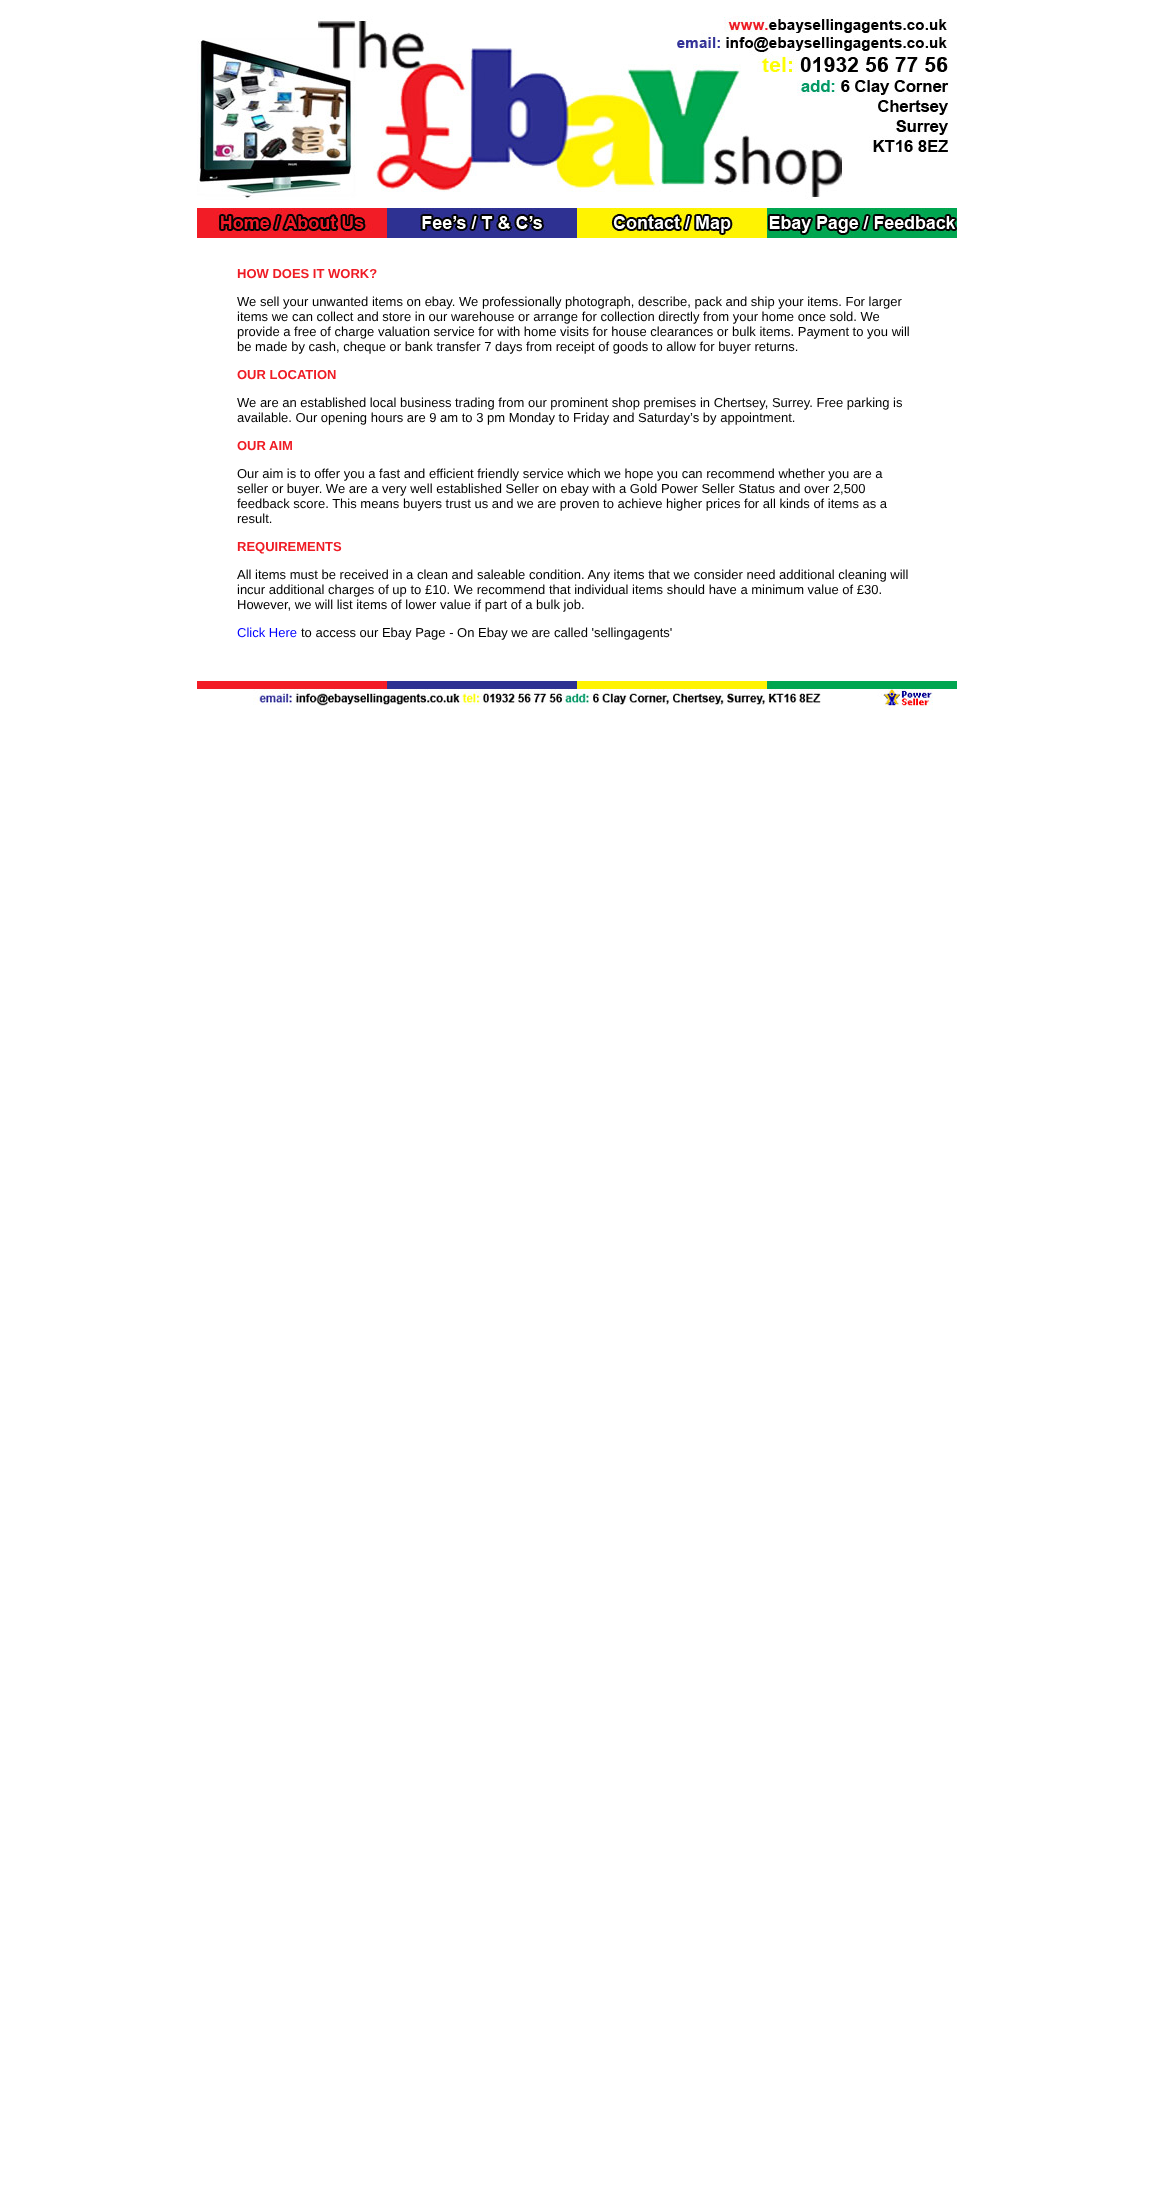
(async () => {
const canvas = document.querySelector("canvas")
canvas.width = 1154
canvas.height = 2190
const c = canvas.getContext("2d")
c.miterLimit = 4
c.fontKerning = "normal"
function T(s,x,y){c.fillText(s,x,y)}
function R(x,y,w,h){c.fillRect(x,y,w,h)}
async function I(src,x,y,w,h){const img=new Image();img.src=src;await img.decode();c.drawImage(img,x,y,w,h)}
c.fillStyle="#fff"
R(0,0,1154,2190)
await I("1.png",197,16,752,184)
await I("2.png",197,208,190,30)
await I("3.png",387,208,190,30)
await I("4.png",577,208,190,30)
await I("5.png",767,208,190,30)
c.font="bold 13px Liberation Sans"
c.fillStyle="#ef1c25"
T("HOW DOES IT WORK?",237,278)
c.font="13px Liberation Sans"
c.fillStyle="#000"
T("We sell your unwanted items on ebay. We professionally photograph, describe, pack and ship your items. For larger",237,306)
T("items we can collect and store in our warehouse or arrange for collection directly from your home once sold. We",237,321)
T("provide a free of charge valuation service for with home visits for house clearances or bulk items. Payment to you will",237,336)
T("be made by cash, cheque or bank transfer 7 days from receipt of goods to allow for buyer returns.",237,351)
c.font="bold 13px Liberation Sans"
c.fillStyle="#ef1c25"
T("OUR LOCATION",237,379)
c.font="13px Liberation Sans"
c.fillStyle="#000"
T("We are an established local business trading from our prominent shop premises in Chertsey, Surrey. Free parking is",237,407)
T("available. Our opening hours are 9 am to 3 pm Monday to Friday and Saturday’s by appointment.",237,422)
c.font="bold 13px Liberation Sans"
c.fillStyle="#ef1c25"
T("OUR AIM",237,450)
c.font="13px Liberation Sans"
c.fillStyle="#000"
T("Our aim is to offer you a fast and efficient friendly service which we hope you can recommend whether you are a",237,478)
T("seller or buyer. We are a very well established Seller on ebay with a Gold Power Seller Status and over 2,500",237,493)
T("feedback score. This means buyers trust us and we are proven to achieve higher prices for all kinds of items as a",237,508)
T("result.",237,523)
c.font="bold 13px Liberation Sans"
c.fillStyle="#ef1c25"
T("REQUIREMENTS",237,551)
c.font="13px Liberation Sans"
c.fillStyle="#000"
T("All items must be received in a clean and saleable condition. Any items that we consider need additional cleaning will",237,579)
T("incur additional charges of up to £10. We recommend that individual items should have a minimum value of £30.",237,594)
T("However, we will list items of lower value if part of a bulk job.",237,609)
c.fillStyle="#00f"
T("Click Here",237,637)
c.fillStyle="#000"
T("to access our Ebay Page - On Ebay we are called 'sellingagents'",301,637)
await I("6.png",197,681,760,8)
await I("7.png",253,689,680,21)
})()
